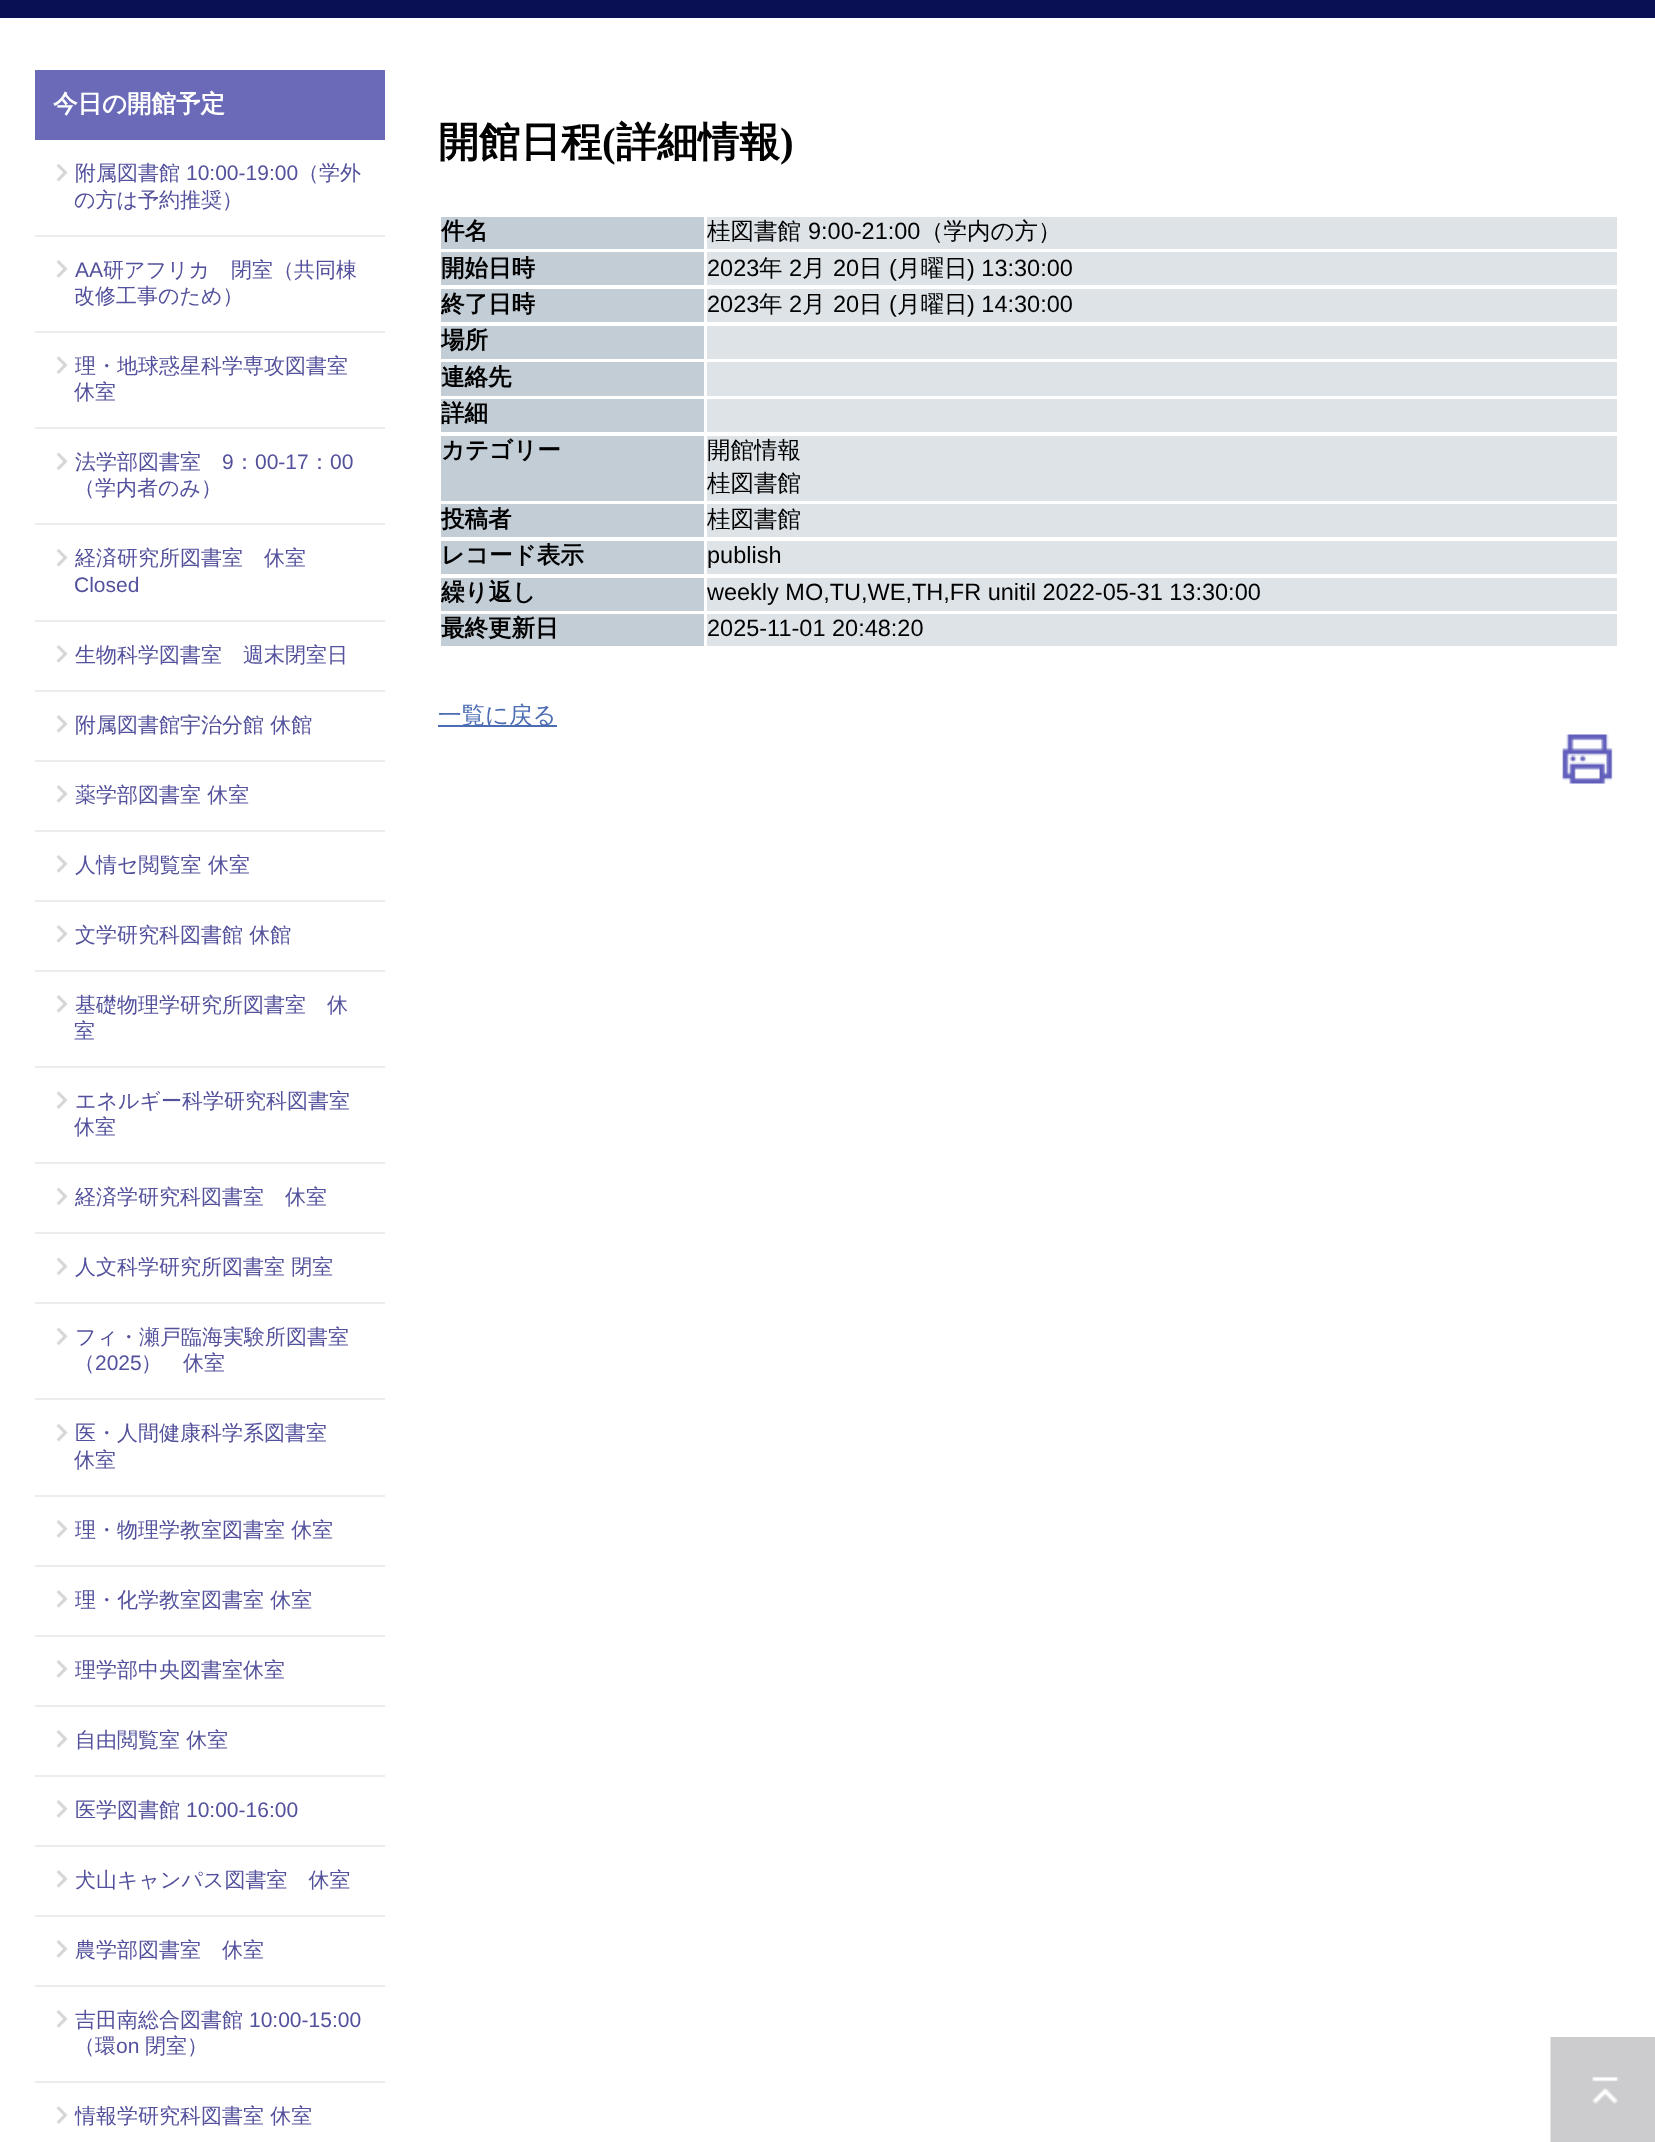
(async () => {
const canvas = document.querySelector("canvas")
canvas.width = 1655
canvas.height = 2142
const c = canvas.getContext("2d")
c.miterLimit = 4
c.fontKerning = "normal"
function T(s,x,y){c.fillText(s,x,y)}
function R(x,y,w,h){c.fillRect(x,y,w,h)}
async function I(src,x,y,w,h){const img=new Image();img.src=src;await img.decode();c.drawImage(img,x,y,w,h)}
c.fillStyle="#fff"
R(0,0,1655,2142)
c.fillStyle="#091054"
R(0,0,1655,18)
c.fillStyle="#6a6ab9"
R(35,70,350,70)
c.font="bold 24.5px WenQuanYi Zen Hei"
c.fillStyle="#fff"
T("今日の開館予定",53,112)
c.fillStyle="#ececec"
R(35,235,350,2)
await I("1.png",56,164,12,18)
c.font="500 21px WenQuanYi Zen Hei"
c.fillStyle="#53519c"
T("附属図書館",75,180)
c.font="21px Liberation Sans"
T("10:00-19:00",186,180)
c.font="500 21px WenQuanYi Zen Hei"
T("（学外",298,180)
T("の方は予約推奨）",74,207)
c.fillStyle="#ececec"
R(35,331,350,2)
await I("2.png",56,260,12,18)
c.font="21px Liberation Sans"
c.fillStyle="#53519c"
T("AA",75,277)
c.font="500 21px WenQuanYi Zen Hei"
T("研アフリカ　閉室（共同棟",103,277)
T("改修工事のため）",74,303)
c.fillStyle="#ececec"
R(35,427,350,2)
await I("3.png",56,356,12,18)
c.fillStyle="#53519c"
T("理・地球惑星科学専攻図書室",75,373)
T("休室",74,399)
c.fillStyle="#ececec"
R(35,523,350,2)
await I("4.png",56,452,12,19)
c.fillStyle="#53519c"
T("法学部図書室",75,469)
c.font="21px Liberation Sans"
T("9",222,469)
c.font="500 21px WenQuanYi Zen Hei"
T("：",234,469)
c.font="21px Liberation Sans"
T("00-17",255,469)
c.font="500 21px WenQuanYi Zen Hei"
T("：",309,469)
c.font="21px Liberation Sans"
T("00",330,469)
c.font="500 21px WenQuanYi Zen Hei"
T("（学内者のみ）",74,495)
c.fillStyle="#ececec"
R(35,620,350,2)
await I("1.png",56,549,12,18)
c.fillStyle="#53519c"
T("経済研究所図書室　休室",75,565)
c.font="21px Liberation Sans"
T("Closed",74,592)
c.fillStyle="#ececec"
R(35,690,350,2)
await I("2.png",56,645,12,18)
c.font="500 21px WenQuanYi Zen Hei"
c.fillStyle="#53519c"
T("生物科学図書室　週末閉室日",75,662)
c.fillStyle="#ececec"
R(35,760,350,2)
await I("2.png",56,715,12,18)
c.fillStyle="#53519c"
T("附属図書館宇治分館 休館",75,732)
c.fillStyle="#ececec"
R(35,830,350,2)
await I("2.png",56,785,12,18)
c.fillStyle="#53519c"
T("薬学部図書室 休室",75,802)
c.fillStyle="#ececec"
R(35,900,350,2)
await I("2.png",56,855,12,18)
c.fillStyle="#53519c"
T("人情セ閲覧室",75,872)
T("休室",208,872)
c.fillStyle="#ececec"
R(35,970,350,2)
await I("2.png",56,925,12,18)
c.fillStyle="#53519c"
T("文学研究科図書館 休館",75,942)
c.fillStyle="#ececec"
R(35,1066,350,2)
await I("2.png",56,995,12,18)
c.fillStyle="#53519c"
T("基礎物理学研究所図書室　休",75,1012)
T("室",74,1038)
c.fillStyle="#ececec"
R(35,1162,350,2)
await I("3.png",56,1091,12,18)
c.fillStyle="#53519c"
T("エネルギー科学研究科図書室",75,1108)
T("休室",74,1134)
c.fillStyle="#ececec"
R(35,1232,350,2)
await I("4.png",56,1187,12,19)
c.fillStyle="#53519c"
T("経済学研究科図書室　休室",75,1204)
c.fillStyle="#ececec"
R(35,1302,350,2)
await I("4.png",56,1257,12,19)
c.fillStyle="#53519c"
T("人文科学研究所図書室 閉室",75,1274)
c.fillStyle="#ececec"
R(35,1398,350,2)
await I("4.png",56,1327,12,19)
c.fillStyle="#53519c"
T("フィ・瀬戸臨海実験所図書室",75,1344)
T("（",74,1370)
c.font="21px Liberation Sans"
T("2025",95,1370)
c.font="500 21px WenQuanYi Zen Hei"
T("）　休室",141,1370)
c.fillStyle="#ececec"
R(35,1495,350,2)
await I("1.png",56,1424,12,18)
c.fillStyle="#53519c"
T("医・人間健康科学系図書室",75,1440)
T("休室",74,1467)
c.fillStyle="#ececec"
R(35,1565,350,2)
await I("2.png",56,1520,12,18)
c.fillStyle="#53519c"
T("理・物理学教室図書室 休室",75,1537)
c.fillStyle="#ececec"
R(35,1635,350,2)
await I("2.png",56,1590,12,18)
c.fillStyle="#53519c"
T("理・化学教室図書室 休室",75,1607)
c.fillStyle="#ececec"
R(35,1705,350,2)
await I("2.png",56,1660,12,18)
c.fillStyle="#53519c"
T("理学部中央図書室休室",75,1677)
c.fillStyle="#ececec"
R(35,1775,350,2)
await I("2.png",56,1730,12,18)
c.fillStyle="#53519c"
T("自由閲覧室 休室",75,1747)
c.fillStyle="#ececec"
R(35,1845,350,2)
await I("5.png",56,1800,12,18)
c.fillStyle="#53519c"
T("医学図書館",75,1817)
c.font="21px Liberation Sans"
T("10:00-16:00",186,1817)
c.fillStyle="#ececec"
R(35,1915,350,2)
await I("2.png",56,1870,12,18)
c.font="500 21px WenQuanYi Zen Hei"
c.fillStyle="#53519c"
T("犬山キャンパス図書室　休室",75,1887)
c.fillStyle="#ececec"
R(35,1985,350,2)
await I("2.png",56,1940,12,18)
c.fillStyle="#53519c"
T("農学部図書室　休室",75,1957)
c.fillStyle="#ececec"
R(35,2081,350,2)
await I("2.png",56,2010,12,18)
c.fillStyle="#53519c"
T("吉田南総合図書館",75,2027)
c.font="21px Liberation Sans"
T("10:00-15:00",249,2027)
c.font="500 21px WenQuanYi Zen Hei"
T("（環",74,2053)
c.font="21px Liberation Sans"
T("on",116,2053)
c.font="500 21px WenQuanYi Zen Hei"
T("閉室）",145,2053)
await I("3.png",56,2106,12,18)
T("情報学研究科図書室 休室",75,2123)
c.font="bold 41px WenQuanYi Zen Hei"
c.fillStyle="#000"
T("開館日程",438,156)
c.font="bold 41px Liberation Serif"
T("(",602,156)
c.font="bold 41px WenQuanYi Zen Hei"
T("詳細情報",616,156)
c.font="bold 41px Liberation Serif"
T(")",780,156)
c.fillStyle="#c2cdd6"
R(441,217,263,32)
c.font="bold 23.5px WenQuanYi Zen Hei"
c.fillStyle="#000"
T("件名",441,239)
c.fillStyle="#dee3e7"
R(707,217,910,32)
c.font="500 23.5px WenQuanYi Zen Hei"
c.fillStyle="#000"
T("桂図書館",707,239)
c.font="23.5px Liberation Sans"
T("9:00-21:00",808,239)
c.font="500 23.5px WenQuanYi Zen Hei"
T("（学内の方）",920,239)
c.fillStyle="#c2cdd6"
R(441,252,263,33)
c.font="bold 23.5px WenQuanYi Zen Hei"
c.fillStyle="#000"
T("開始日時",441,276)
c.fillStyle="#dee3e7"
R(707,252,910,33)
c.font="23.5px Liberation Sans"
c.fillStyle="#000"
T("2023",707,276)
c.font="500 23.5px WenQuanYi Zen Hei"
T("年",759,276)
c.font="23.5px Liberation Sans"
T("2",789,276)
c.font="500 23.5px WenQuanYi Zen Hei"
T("月",802,276)
c.font="23.5px Liberation Sans"
T("20",833,276)
c.font="500 23.5px WenQuanYi Zen Hei"
T("日",859,276)
c.font="23.5px Liberation Sans"
T("(",889,276)
c.font="500 23.5px WenQuanYi Zen Hei"
T("月曜日",897,276)
c.font="23.5px Liberation Sans"
T(") 13:30:00",967,276)
c.fillStyle="#c2cdd6"
R(441,289,263,33)
c.font="bold 23.5px WenQuanYi Zen Hei"
c.fillStyle="#000"
T("終了日時",441,312)
c.fillStyle="#dee3e7"
R(707,289,910,33)
c.font="23.5px Liberation Sans"
c.fillStyle="#000"
T("2023",707,312)
c.font="500 23.5px WenQuanYi Zen Hei"
T("年",759,312)
c.font="23.5px Liberation Sans"
T("2",789,312)
c.font="500 23.5px WenQuanYi Zen Hei"
T("月",802,312)
c.font="23.5px Liberation Sans"
T("20",833,312)
c.font="500 23.5px WenQuanYi Zen Hei"
T("日",859,312)
c.font="23.5px Liberation Sans"
T("(",889,312)
c.font="500 23.5px WenQuanYi Zen Hei"
T("月曜日",897,312)
c.font="23.5px Liberation Sans"
T(") 14:30:00",967,312)
c.fillStyle="#c2cdd6"
R(441,326,263,33)
c.font="bold 23.5px WenQuanYi Zen Hei"
c.fillStyle="#000"
T("場所",441,348)
c.fillStyle="#dee3e7"
R(707,326,910,33)
c.fillStyle="#c2cdd6"
R(441,362,263,34)
c.fillStyle="#000"
T("連絡先",441,385)
c.fillStyle="#dee3e7"
R(707,362,910,34)
c.fillStyle="#c2cdd6"
R(441,399,263,33)
c.fillStyle="#000"
T("詳細",441,421)
c.fillStyle="#dee3e7"
R(707,399,910,33)
c.fillStyle="#c2cdd6"
R(441,436,263,65)
c.fillStyle="#000"
T("カテゴリー",441,458)
c.fillStyle="#dee3e7"
R(707,436,910,65)
c.font="500 23.5px WenQuanYi Zen Hei"
c.fillStyle="#000"
T("開館情報",707,458)
T("桂図書館",707,491)
c.fillStyle="#c2cdd6"
R(441,504,263,33)
c.font="bold 23.5px WenQuanYi Zen Hei"
c.fillStyle="#000"
T("投稿者",441,527)
c.fillStyle="#dee3e7"
R(707,504,910,33)
c.font="500 23.5px WenQuanYi Zen Hei"
c.fillStyle="#000"
T("桂図書館",707,527)
c.fillStyle="#c2cdd6"
R(441,541,263,33)
c.font="bold 23.5px WenQuanYi Zen Hei"
c.fillStyle="#000"
T("レコード表示",441,563)
c.fillStyle="#dee3e7"
R(707,541,910,33)
c.font="23.5px Liberation Sans"
c.fillStyle="#000"
T("publish",707,563)
c.fillStyle="#c2cdd6"
R(441,578,263,33)
c.font="bold 23.5px WenQuanYi Zen Hei"
c.fillStyle="#000"
T("繰り返し",441,600)
c.fillStyle="#dee3e7"
R(707,578,910,33)
c.font="23.5px Liberation Sans"
c.fillStyle="#000"
T("weekly MO,TU,WE,TH,FR unitil 2022-05-31 13:30:00",707,600)
c.fillStyle="#c2cdd6"
R(441,614,263,32)
c.font="bold 23.5px WenQuanYi Zen Hei"
c.fillStyle="#000"
T("最終更新日",441,636)
c.fillStyle="#dee3e7"
R(707,614,910,32)
c.font="23.5px Liberation Sans"
c.fillStyle="#000"
T("2025-11-01 20:48:20",707,636)
c.fillStyle="#4c6cb3"
R(438,725,119,2)
c.font="500 23.5px WenQuanYi Zen Hei"
T("一覧に戻る",438,723)
await I("6.png",1562,734,51,50)
await I("7.png",1550,2037,105,105)
})()
